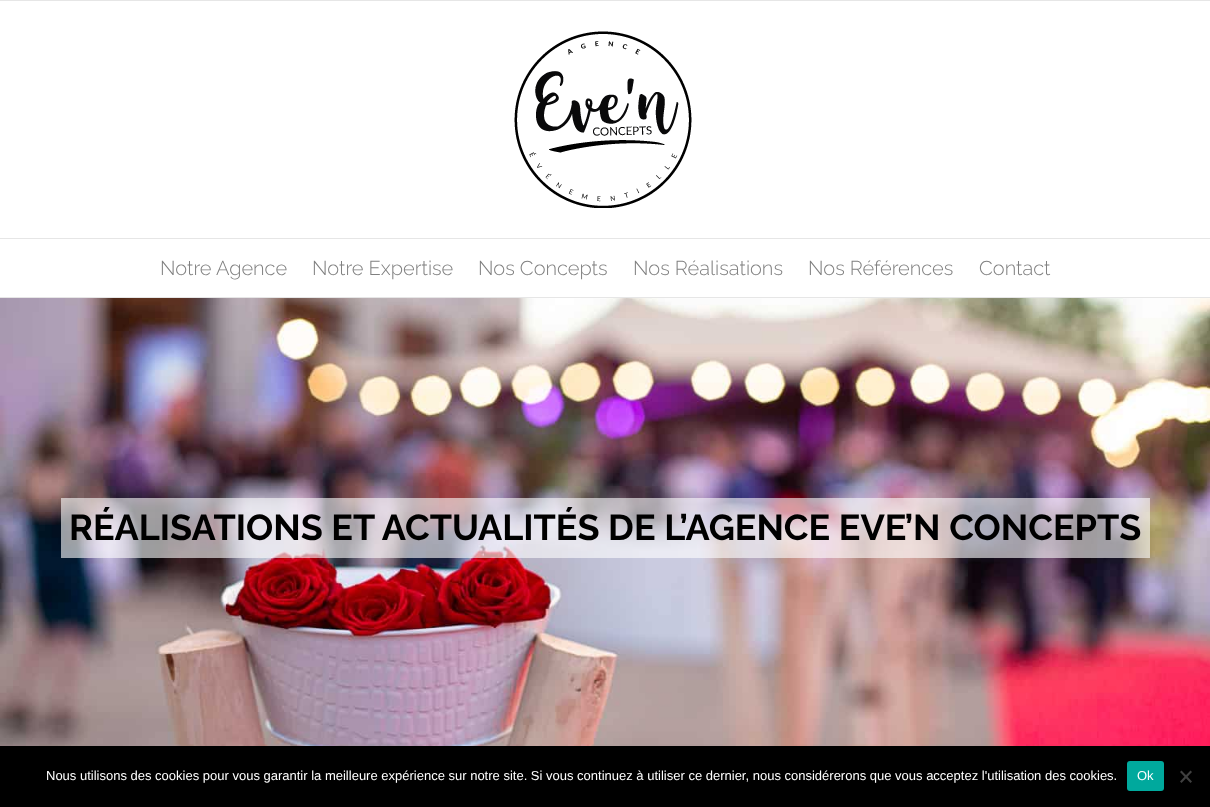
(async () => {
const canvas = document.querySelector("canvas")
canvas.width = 1210
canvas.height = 807
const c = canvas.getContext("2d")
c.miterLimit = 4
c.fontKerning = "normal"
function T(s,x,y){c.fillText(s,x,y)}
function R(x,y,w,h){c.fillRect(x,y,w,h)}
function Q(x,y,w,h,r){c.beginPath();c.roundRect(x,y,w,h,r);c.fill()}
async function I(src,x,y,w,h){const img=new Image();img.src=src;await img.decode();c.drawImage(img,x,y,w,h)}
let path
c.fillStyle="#fff"
R(0,0,1210,807)
c.fillStyle="#e6e6e6"
R(0,0,1210,1)
await I("1.png",514,31,178,177)
R(0,238,1210,1)
R(0,297,1210,1)
c.font="300 20px Raleway"
c.fillStyle="#808080"
T("Notre Agence",160,275)
T("Notre Expertise",312,275)
T("Nos Concepts",478,275)
T("Nos Réalisations",633,275)
T("Nos Références",808,275)
T("Contact",979,275)
await I("2.png",0,298,1210,448)
c.fillStyle="#ffffff99"
R(61,498,1089,60)
c.font="bold 36px Raleway"
c.fillStyle="#000"
T("RÉALISATIONS ET ACTUALITÉS DE L’AGENCE EVE’N CONCEPTS",69,540)
R(0,746,1210,61)
c.font="13px Liberation Sans"
c.fillStyle="#fff"
T("Nous utilisons des cookies pour vous garantir la meilleure expérience sur notre site. Si vous continuez à utiliser ce dernier, nous considérerons que vous acceptez l'utilisation des cookies.",46,780)
c.fillStyle="#00a99d"
Q(1127,761,37,30,3)
c.fillStyle="#fff"
T("Ok",1137,780)
c.fillStyle="#404040"
path = new Path2D("M1190.5 770.5l1.5 1.5l-10.5 11l-1.5-1.5z")
c.fill(path)
path = new Path2D("M1180 772l1.5-1.5l10.5 11l-1.5 1.5z")
c.fill(path)
})()
